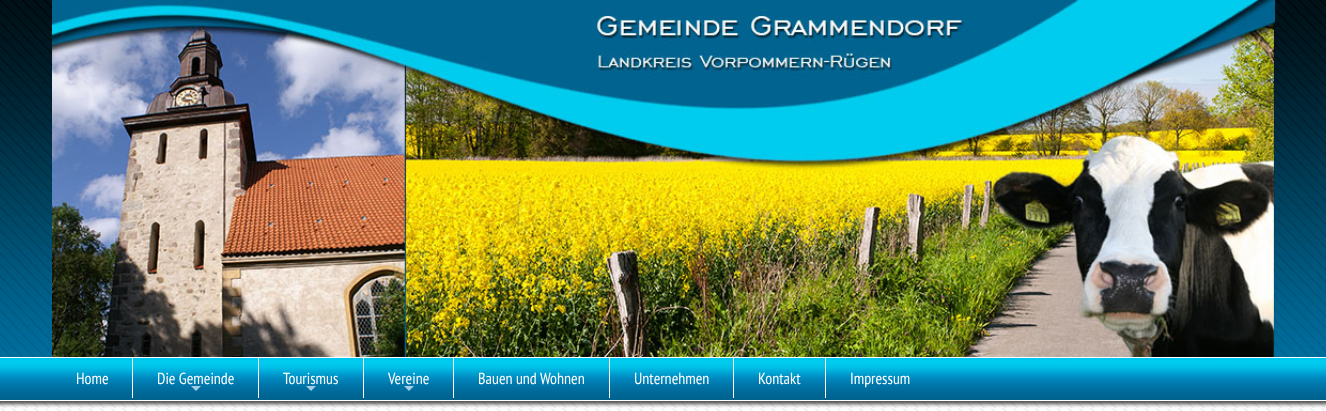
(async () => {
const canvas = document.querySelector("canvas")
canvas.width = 1326
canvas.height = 411
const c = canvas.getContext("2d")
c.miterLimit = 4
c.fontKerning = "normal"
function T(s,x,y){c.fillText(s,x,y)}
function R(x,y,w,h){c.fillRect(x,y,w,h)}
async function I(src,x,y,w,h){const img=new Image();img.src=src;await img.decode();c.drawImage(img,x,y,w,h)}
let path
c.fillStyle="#fff"
R(0,0,1326,411)
await I("1.png",0,408,1326,3)
await I("2.png",0,0,1326,408)
await I("3.png",52,0,1223,357)
c.font="16px PT Sans Narrow"
T("Home",76,384)
R(132,358,1,40)
T("Die Gemeinde",157,384)
c.fillStyle="#a4cde1"
path = new Path2D("M191 386h10l-5 5z")
c.fill(path)
c.fillStyle="#fff"
R(258,358,1,40)
T("Tourismus",283,384)
c.fillStyle="#a4cde1"
path = new Path2D("M306 386h10l-5 5z")
c.fill(path)
c.fillStyle="#fff"
R(363,358,1,40)
T("Vereine",388,384)
c.fillStyle="#a4cde1"
path = new Path2D("M404 386h10l-5 5z")
c.fill(path)
c.fillStyle="#fff"
R(453,358,1,40)
T("Bauen und Wohnen",478,384)
R(609,358,1,40)
T("Unternehmen",634,384)
R(733,358,1,40)
T("Kontakt",758,384)
R(825,358,1,40)
T("Impressum",850,384)
})()
